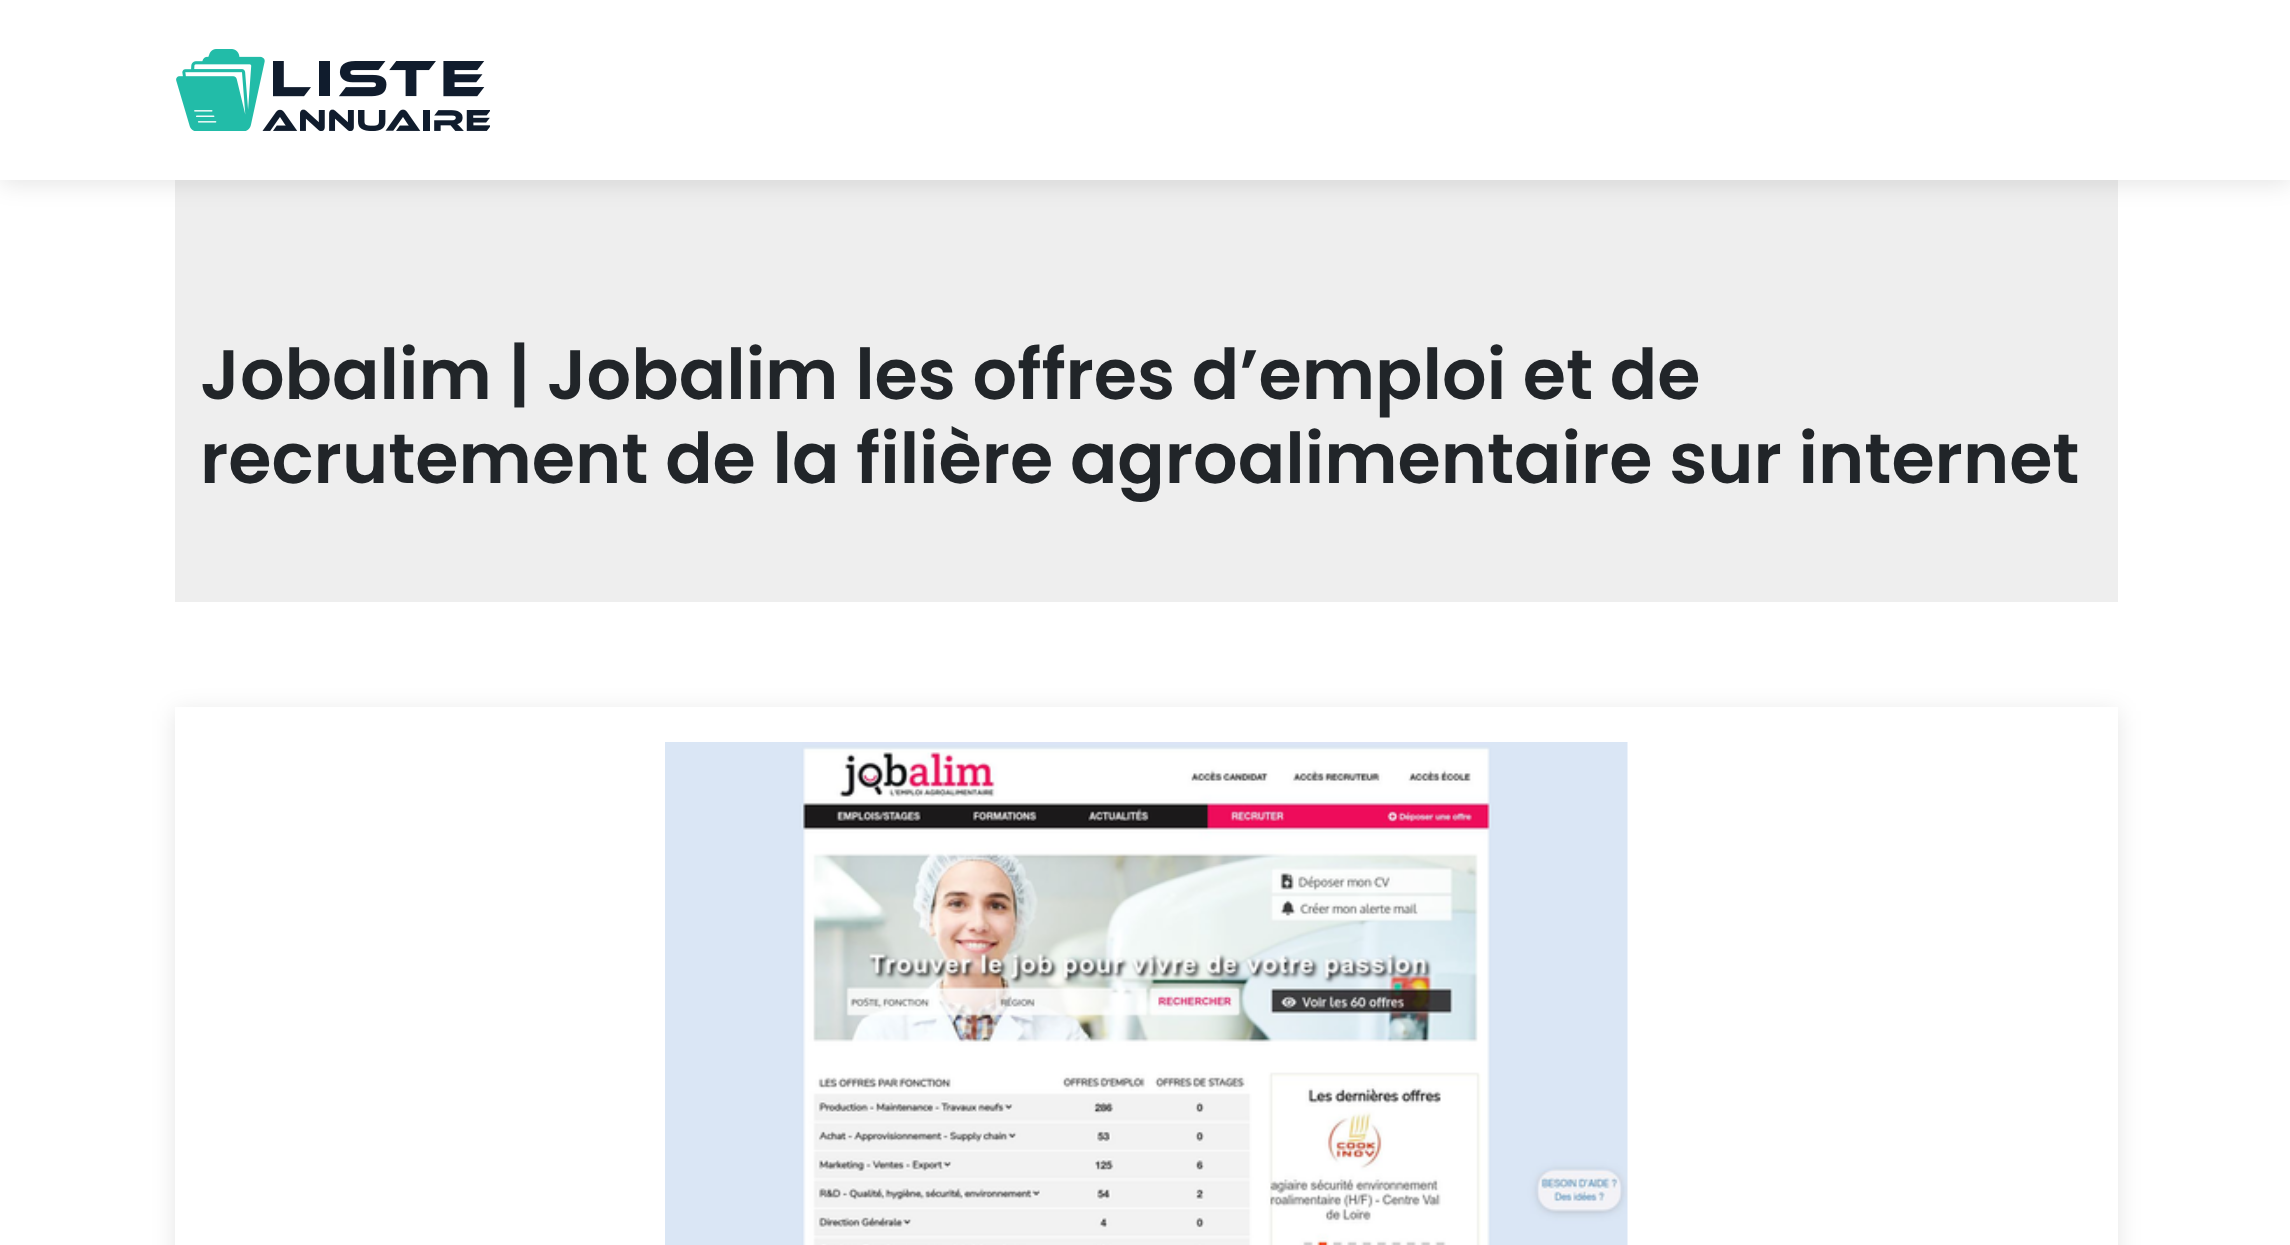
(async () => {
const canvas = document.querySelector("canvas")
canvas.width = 2290
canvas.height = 1245
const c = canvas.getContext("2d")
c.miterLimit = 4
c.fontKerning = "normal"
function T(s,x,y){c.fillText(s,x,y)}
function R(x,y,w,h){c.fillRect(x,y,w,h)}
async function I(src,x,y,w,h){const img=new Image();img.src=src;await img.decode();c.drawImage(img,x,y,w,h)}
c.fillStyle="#fff"
R(0,0,2290,1245)
c.fillStyle="#eee"
R(175,180,1943,422)
c.fillStyle="#0000001a"
c.filter="blur(11.5px)"
c.beginPath()
c.rect(0,4,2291,180)
c.fill()
c.filter="none"
c.fillStyle="#fff"
R(0,0,2290,180)
await I("1.png",176,49,314,82)
c.font="600 70px Poppins"
c.fillStyle="#212529"
T("Jobalim | Jobalim les offres d’emploi et de",200,399)
T("recrutement de la filière agroalimentaire sur internet",200,483)
c.fillStyle="#0000001a"
c.filter="blur(11.5px)"
c.beginPath()
c.rect(175,711,1943,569)
c.fill()
c.filter="none"
c.fillStyle="#fff"
R(175,707,1943,538)
await I("2.png",665,742,963,503)
})()
